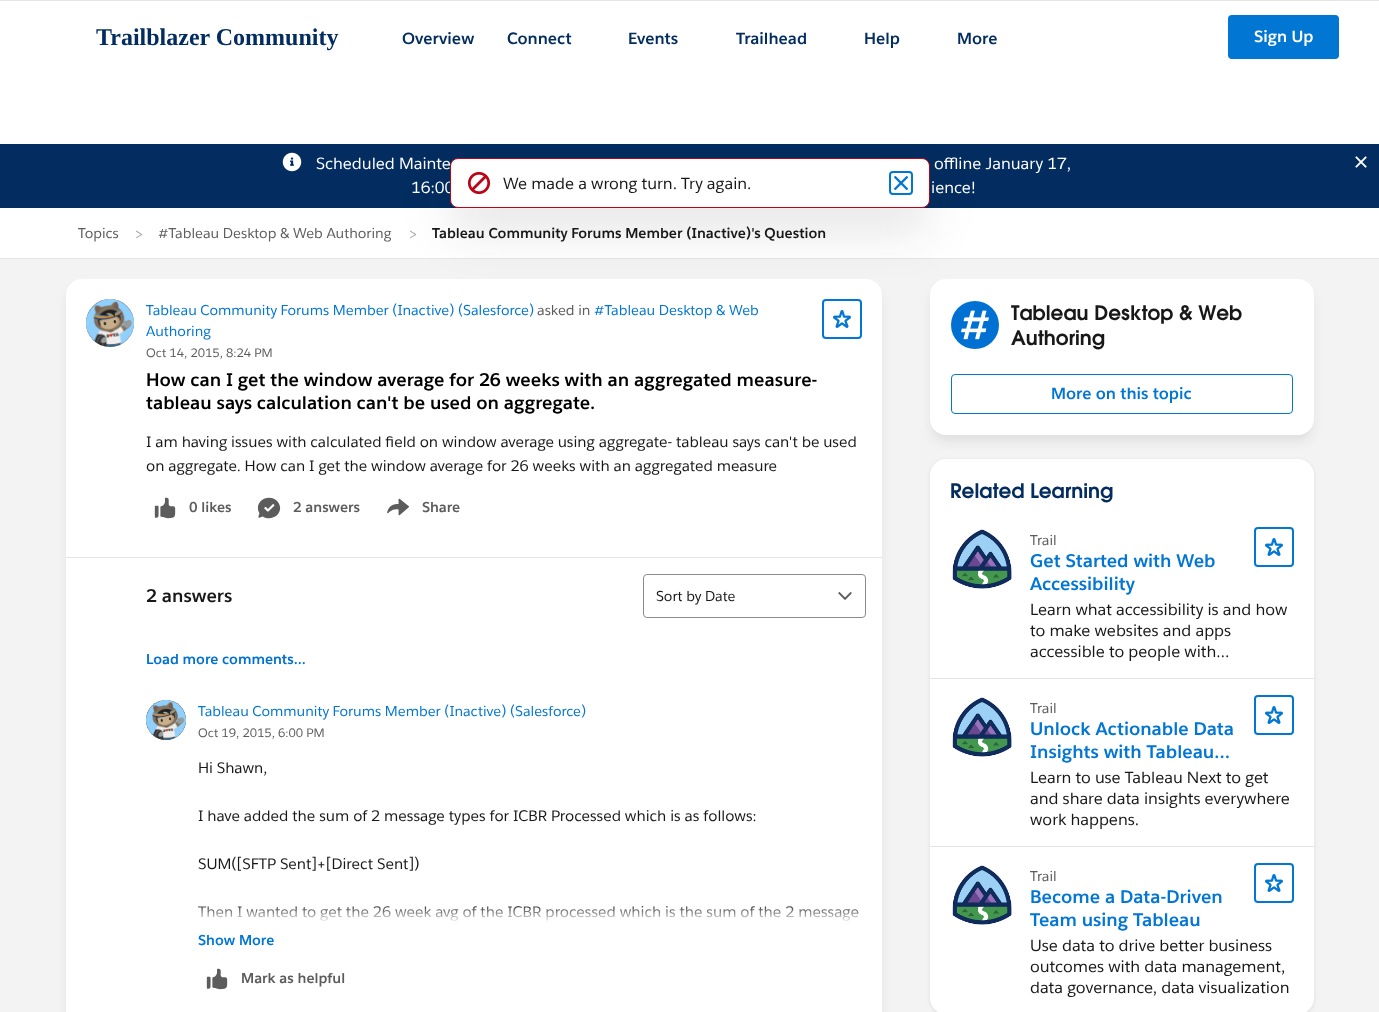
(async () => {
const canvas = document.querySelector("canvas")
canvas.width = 1379
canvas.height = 1012
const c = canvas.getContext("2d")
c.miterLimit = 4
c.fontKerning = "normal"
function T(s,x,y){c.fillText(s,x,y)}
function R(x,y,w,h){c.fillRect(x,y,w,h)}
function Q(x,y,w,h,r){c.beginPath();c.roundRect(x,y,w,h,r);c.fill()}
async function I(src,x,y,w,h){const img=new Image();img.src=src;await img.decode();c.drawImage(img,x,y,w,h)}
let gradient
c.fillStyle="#fff"
R(0,0,1379,1012)
c.fillStyle="#e5e5e5"
R(0,0,1379,1)
c.font="bold 24px Liberation Serif"
c.fillStyle="#032d60"
T("Trailblazer Community",96,45)
c.font="bold 16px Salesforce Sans"
T("Overview",402,44)
T("Connect",507,44)
T("Events",628,44)
T("Trailhead",736,44)
T("Help",864,44)
T("More",957,44)
c.fillStyle="#0176d3"
c.beginPath()
c.roundRect(1229,16,109,42,3)
c.fill()
c.strokeStyle="#0176d3"
c.lineWidth=2
c.stroke()
c.fillStyle="#fff"
T("Sign Up",1254,42)
c.fillStyle="#032d60"
R(0,144,1379,64)
await I("1.png",282,152,20,20)
c.font="16px Salesforce Sans"
c.fillStyle="#fff"
T("Scheduled Mainte",316,169)
T("offline January 17,",934,169)
T("16:00",411,193)
T("ience!",931,193)
await I("2.png",1355,156,12,12)
c.fillStyle="#f3f3f3"
R(0,259,1379,753)
c.fillStyle="#e5e5e5"
R(0,258,1379,1)
c.fillStyle="#18181817"
c.filter="blur(6px)"
c.beginPath()
c.roundRect(68,289,812,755,14)
c.fill()
c.filter="none"
c.fillStyle="#fff"
Q(66,279,816,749,16)
c.beginPath()
c.roundRect(823,300,38,38,3)
c.stroke()
c.fillStyle="#1818180f"
c.filter="blur(1.5px)"
c.beginPath()
c.roundRect(929,459,386,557,17)
c.fill()
c.filter="none"
c.fillStyle="#fff"
Q(930,459,384,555,16)
c.fillStyle="#18181817"
c.filter="blur(6px)"
c.beginPath()
c.roundRect(932,289,380,152,14)
c.fill()
c.filter="none"
c.fillStyle="#fff"
Q(930,279,384,156,16)
c.fillStyle="#0070d2"
c.beginPath()
c.arc(975,325,24,0,7)
c.fill()
c.fillStyle="#1818181f"
c.filter="blur(24px)"
c.beginPath()
c.roundRect(452,184,476,46,6)
c.fill()
c.filter="none"
c.fillStyle="#fff"
c.beginPath()
c.roundRect(450.5,158.5,479,49,7.5)
c.fill()
c.strokeStyle="#ba0517"
c.lineWidth=1
c.stroke()
await I("3.png",467,171,24,24)
c.fillStyle="#181818"
T("We made a wrong turn. Try again.",503,189)
c.beginPath()
c.roundRect(890,172,22,22,3)
c.strokeStyle="#0176d3"
c.lineWidth=2
c.stroke()
await I("4.png",893,176,15,15)
c.font="14px Salesforce Sans"
c.fillStyle="#5c5c5c"
T("Topics",78,238)
c.font="16px Salesforce Sans"
c.fillStyle="#aeaeae"
T(">",134,239)
c.font="14px Salesforce Sans"
c.fillStyle="#5c5c5c"
T("#Tableau Desktop & Web Authoring",158,238)
c.font="16px Salesforce Sans"
c.fillStyle="#aeaeae"
T(">",408,239)
c.font="bold 14px Salesforce Sans"
c.fillStyle="#181818"
T("Tableau Community Forums Member (Inactive)'s Question",432,238)
await I("5.png",86,299,48,48)
c.font="14px Salesforce Sans"
c.fillStyle="#0176d3"
T("Tableau Community Forums Member (Inactive) (Salesforce)",146,315)
c.fillStyle="#5c5c5c"
T("asked in",537,315)
c.fillStyle="#0176d3"
T("#Tableau Desktop & Web",594,315)
T("Authoring",146,336)
await I("6.png",833,310,18,18)
c.font="12px Salesforce Sans"
c.fillStyle="#5c5c5c"
T("Oct 14, 2015, 8:24 PM",146,357)
c.font="bold 18px Salesforce Sans"
c.fillStyle="#000"
T("How can I get the window average for 26 weeks with an aggregated measure-",146,386)
T("tableau says calculation can't be used on aggregate.",146,409)
c.font="15px Salesforce Sans"
c.fillStyle="#181818"
T("I am having issues with calculated field on window average using aggregate- tableau says can't be used",146,447)
T("on aggregate. How can I get the window average for 26 weeks with an aggregated measure",146,471)
await I("7.png",154,497,22,22)
c.font="bold 14px Salesforce Sans"
c.fillStyle="#5c5c5c"
T("0 likes",189,512)
await I("8.png",257,497,24,22)
T("2 answers",293,512)
await I("9.png",387,498,22,18)
T("Share",422,512)
c.fillStyle="#e5e5e5"
R(66,557,816,1)
c.font="bold 18px Salesforce Sans"
c.fillStyle="#181818"
T("2 answers",146,602)
c.beginPath()
c.roundRect(643.5,574.5,222,43,3.5)
c.strokeStyle="#8c8c8c"
c.lineWidth=1
c.stroke()
c.font="14px Salesforce Sans"
T("Sort by Date",656,601)
await I("10.png",838,592,14,8)
c.font="bold 14px Salesforce Sans"
c.fillStyle="#0070d2"
T("Load more comments...",146,664)
c.fillStyle="#e5e5e5"
c.beginPath()
c.arc(166,720,20,0,7)
c.fill()
await I("11.png",146,700,40,40)
c.font="14px Salesforce Sans"
c.fillStyle="#0176d3"
T("Tableau Community Forums Member (Inactive) (Salesforce)",198,716)
c.font="12px Salesforce Sans"
c.fillStyle="#5c5c5c"
T("Oct 19, 2015, 6:00 PM",198,737)
c.font="15px Salesforce Sans"
c.fillStyle="#181818"
T("Hi Shawn,",198,773)
T("I have added the sum of 2 message types for ICBR Processed which is as follows:",198,821)
T("SUM([SFTP Sent]+[Direct Sent])",198,869)
T("Then I wanted to get the 26 week avg of the ICBR processed which is the sum of the 2 message",198,917)
gradient = c.createLinearGradient(530,873,530,923)
gradient.addColorStop(.6,"#ffffff00")
gradient.addColorStop(1,"#fff")
c.fillStyle = gradient
R(198,906,660,15)
c.font="bold 14px Salesforce Sans"
c.fillStyle="#0176d3"
T("Show More",198,945)
await I("7.png",206,968,22,22)
c.fillStyle="#5c5c5c"
T("Mark as helpful",241,983)
await I("12.png",961,310,28,30)
c.font="600 20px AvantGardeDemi"
c.fillStyle="#181818"
T("Tableau Desktop & Web",1011,320)
T("Authoring",1011,345)
c.beginPath()
c.roundRect(951.5,374.5,341,39,3.5)
c.strokeStyle="#0176d3"
c.stroke()
c.font="bold 16px Salesforce Sans"
c.fillStyle="#0176d3"
T("More on this topic",1051,399)
c.font="600 20px AvantGardeDemi"
c.fillStyle="#032d60"
T("Related Learning",950,498)
await I("13.png",952,529,60,60)
c.font="14px Salesforce Sans"
c.fillStyle="#5c5c5c"
T("Trail",1030,545)
c.beginPath()
c.roundRect(1255,528,38,38,3)
c.lineWidth=2
c.stroke()
await I("6.png",1265,538,18,18)
c.font="bold 18px Salesforce Sans"
c.fillStyle="#0176d3"
T("Get Started with Web",1030,567)
T("Accessibility",1030,590)
c.font="16px Salesforce Sans"
c.fillStyle="#181818"
T("Learn what accessibility is and how",1030,615)
T("to make websites and apps",1030,636)
T("accessible to people with…",1030,657)
c.fillStyle="#e5e5e5"
R(930,678,384,1)
await I("14.png",952,697,60,60)
c.font="14px Salesforce Sans"
c.fillStyle="#5c5c5c"
T("Trail",1030,713)
c.beginPath()
c.roundRect(1255,696,38,38,3)
c.stroke()
await I("6.png",1265,706,18,18)
c.font="bold 18px Salesforce Sans"
c.fillStyle="#0176d3"
T("Unlock Actionable Data",1030,735)
T("Insights with Tableau…",1030,758)
c.font="16px Salesforce Sans"
c.fillStyle="#181818"
T("Learn to use Tableau Next to get",1030,783)
T("and share data insights everywhere",1030,804)
T("work happens.",1030,825)
c.fillStyle="#e5e5e5"
R(930,846,384,1)
await I("15.png",952,865,60,60)
c.font="14px Salesforce Sans"
c.fillStyle="#5c5c5c"
T("Trail",1030,881)
c.beginPath()
c.roundRect(1255,864,38,38,3)
c.stroke()
await I("6.png",1265,874,18,18)
c.font="bold 18px Salesforce Sans"
c.fillStyle="#0176d3"
T("Become a Data-Driven",1030,903)
c.save()
c.beginPath()
c.rect(1030,885,216,46)
c.clip()
T("Team using Tableau",1030,926)
c.restore()
c.font="16px Salesforce Sans"
c.fillStyle="#181818"
T("Use data to drive better business",1030,951)
T("outcomes with data management,",1030,972)
T("data governance, data visualization",1030,993)
})()
